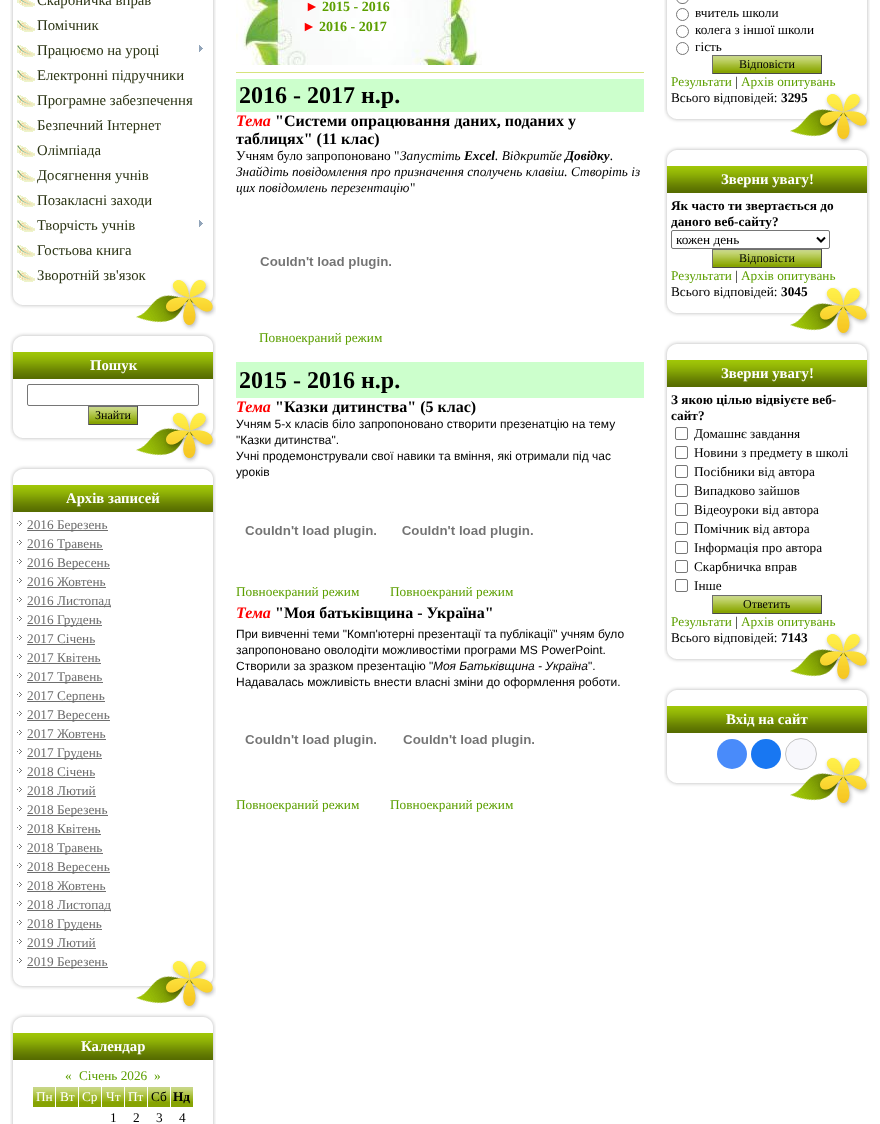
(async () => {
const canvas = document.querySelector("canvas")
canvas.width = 880
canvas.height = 1124
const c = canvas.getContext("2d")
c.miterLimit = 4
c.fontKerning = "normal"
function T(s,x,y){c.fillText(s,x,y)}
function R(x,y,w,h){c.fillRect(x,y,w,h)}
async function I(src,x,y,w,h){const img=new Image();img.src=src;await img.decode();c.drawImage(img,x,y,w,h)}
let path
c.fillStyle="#fff"
R(0,0,880,1124)
await I("1.png",10,0,206,279)
await I("2.png",10,279,206,53)
await I("3.png",17,0,18,7)
c.font="14.75px Liberation Serif"
c.fillStyle="#2b3414"
T("Скарбничка вправ",37,5)
await I("4.png",17,20,18,12)
T("Помічник",37,30)
await I("4.png",17,45,18,12)
T("Працюємо на уроці",37,55)
await I("5.png",199,45,4,7)
await I("4.png",17,70,18,12)
T("Електронні підручники",37,80)
await I("4.png",17,95,18,12)
T("Програмне забезпечення",37,105)
await I("4.png",17,120,18,12)
T("Безпечний Інтернет",37,130)
await I("4.png",17,145,18,12)
T("Олімпіада",37,155)
await I("4.png",17,170,18,12)
T("Досягнення учнів",37,180)
await I("4.png",17,195,18,12)
T("Позакласні заходи",37,205)
await I("4.png",17,220,18,12)
T("Творчість учнів",37,230)
await I("5.png",199,220,4,7)
await I("4.png",17,245,18,12)
T("Гостьова книга",37,255)
await I("4.png",17,270,18,12)
T("Зворотній зв'язок",37,280)
await I("6.png",10,379,206,33)
await I("7.png",10,332,206,47)
c.font="bold 14.75px Liberation Serif"
c.fillStyle="#fff"
T("Пошук",90,370)
await I("2.png",10,412,206,53)
c.beginPath()
c.roundRect(27.5,384.5,171,21,1.5)
c.strokeStyle="#767676"
c.stroke()
c.fillStyle="#87a303"
R(89,422,48,2)
await I("8.png",89,407,48,15)
c.fillStyle="#6e6e6e"
R(88,406,50,1)
c.fillStyle="#494949"
R(137,406,1,19)
R(88,424,50,1)
c.fillStyle="#6e6e6e"
R(88,406,1,19)
c.font="12px Liberation Serif"
c.fillStyle="#000"
T("Знайти",95,419)
await I("9.png",10,512,206,448)
await I("7.png",10,465,206,47)
c.font="bold 14.75px Liberation Serif"
c.fillStyle="#fff"
T("Архів записей",66,503)
await I("2.png",10,960,206,53)
await I("10.png",17,521,5,5)
c.fillStyle="#6e6e6e"
R(27,530,81,1)
c.font="13.3px Liberation Serif"
T("2016 Березень",27,529)
await I("10.png",17,540,5,5)
R(27,549,76,1)
T("2016 Травень",27,548)
await I("10.png",17,559,5,5)
R(27,568,83,1)
T("2016 Вересень",27,567)
await I("10.png",17,578,5,5)
T("2016 Жовтень",27,586)
R(27,587,79,1)
await I("10.png",17,597,5,5)
R(27,606,84,1)
T("2016 Листопад",27,605)
await I("10.png",17,616,5,5)
R(27,625,75,1)
T("2016 Грудень",27,624)
await I("10.png",17,635,5,5)
T("2017 Січень",27,643)
R(27,644,68,1)
await I("10.png",17,654,5,5)
T("2017 Квітень",27,662)
R(27,663,74,1)
await I("10.png",17,673,5,5)
R(27,682,76,1)
T("2017 Травень",27,681)
await I("10.png",17,692,5,5)
R(27,701,78,1)
T("2017 Серпень",27,700)
await I("10.png",17,711,5,5)
R(27,720,83,1)
T("2017 Вересень",27,719)
await I("10.png",17,730,5,5)
T("2017 Жовтень",27,738)
R(27,739,79,1)
await I("10.png",17,749,5,5)
R(27,758,75,1)
T("2017 Грудень",27,757)
await I("10.png",17,768,5,5)
T("2018 Січень",27,776)
R(27,777,68,1)
await I("10.png",17,787,5,5)
T("2018 Лютий",27,795)
R(27,796,69,1)
await I("10.png",17,806,5,5)
R(27,815,81,1)
T("2018 Березень",27,814)
await I("10.png",17,825,5,5)
T("2018 Квітень",27,833)
R(27,834,74,1)
await I("10.png",17,844,5,5)
R(27,853,76,1)
T("2018 Травень",27,852)
await I("10.png",17,863,5,5)
R(27,872,83,1)
T("2018 Вересень",27,871)
await I("10.png",17,882,5,5)
T("2018 Жовтень",27,890)
R(27,891,79,1)
await I("10.png",17,901,5,5)
R(27,910,84,1)
T("2018 Листопад",27,909)
await I("10.png",17,920,5,5)
R(27,929,75,1)
T("2018 Грудень",27,928)
await I("10.png",17,939,5,5)
T("2019 Лютий",27,947)
R(27,948,69,1)
await I("10.png",17,958,5,5)
R(27,967,81,1)
T("2019 Березень",27,966)
await I("11.png",10,1060,206,64)
await I("7.png",10,1013,206,47)
c.font="bold 14.75px Liberation Serif"
c.fillStyle="#fff"
T("Календар",81,1051)
c.font="13.3px Liberation Serif"
c.fillStyle="#5c9f00"
T("«",65,1080)
T("Січень 2026",79,1080)
T("»",154,1080)
c.fillStyle="#87a303"
R(33,1102,22,5)
await I("12.png",33,1087,22,15)
c.fillStyle="#fff"
T("Пн",36,1101)
c.fillStyle="#87a303"
R(56,1102,22,5)
await I("12.png",56,1087,22,15)
c.fillStyle="#fff"
T("Вт",60,1101)
c.fillStyle="#87a303"
R(79,1102,22,5)
await I("12.png",79,1087,22,15)
c.fillStyle="#fff"
T("Ср",82,1101)
c.fillStyle="#87a303"
R(102,1102,22,5)
await I("12.png",102,1087,22,15)
c.fillStyle="#fff"
T("Чт",106,1101)
c.fillStyle="#87a303"
R(125,1102,22,5)
await I("12.png",125,1087,22,15)
c.fillStyle="#fff"
T("Пт",128,1101)
c.fillStyle="#87a303"
R(148,1102,22,5)
await I("12.png",148,1087,22,15)
c.fillStyle="#000"
T("Сб",151,1101)
c.fillStyle="#87a303"
R(171,1102,22,5)
await I("12.png",171,1087,22,15)
c.font="bold 13.3px Liberation Serif"
c.fillStyle="#000"
T("Нд",173,1101)
c.font="13.3px Liberation Serif"
T("1",110,1122)
T("2",133,1122)
T("3",156,1122)
T("4",179,1122)
await I("13.png",236,0,246,65)
c.font="bold 14px Liberation Serif"
c.fillStyle="#f00"
T("►",305,11)
c.fillStyle="#5c9f00"
T("2015 - 2016",322,11)
c.fillStyle="#f00"
T("►",302,31)
c.fillStyle="#5c9f00"
T("2016 - 2017",319,31)
c.fillStyle="#d6e37d"
R(236,72,408,1)
c.fillStyle="#cfc"
R(236,79,408,33)
c.font="bold 24px Liberation Serif"
c.fillStyle="#000"
T("2016 - 2017 н.р.",239,103)
c.font="italic bold 16px Liberation Serif"
c.fillStyle="#f00"
T("Тема",236,126)
c.font="bold 16px Liberation Serif"
c.fillStyle="#000"
T("\"Системи опрацювання даних, поданих у",275,126)
T("таблицях\" (11 клас)",236,144)
c.font="13.3px Liberation Serif"
T("Учням було запропоновано \"",236,160)
c.font="italic 13.3px Liberation Serif"
T("Запустіть",400,160)
c.font="italic bold 13.3px Liberation Serif"
T("Excel",464,160)
c.font="italic 13.3px Liberation Serif"
T(". Відкритйе",495,160)
c.font="italic bold 13.3px Liberation Serif"
T("Довідку",565,160)
c.font="italic 13.3px Liberation Serif"
T(".",610,160)
T("Знайдіть повідомлення про призначення сполучень клавіш. Створіть із",236,176)
T("цих повідомлень перезентацію",236,192)
c.font="13.3px Liberation Serif"
T("\"",410,192)
await I("14.png",260,257,131,12)
c.fillStyle="#5c9f00"
T("Повноекраний режим",259,342)
c.fillStyle="#cfc"
R(236,362,408,36)
c.font="bold 24px Liberation Serif"
c.fillStyle="#000"
T("2015 - 2016 н.р.",239,388)
c.font="italic bold 16px Liberation Serif"
c.fillStyle="#f00"
T("Тема",236,412)
c.font="bold 16px Liberation Serif"
c.fillStyle="#000"
T("\"Казки дитинства\" (5 клас)",275,412)
c.font="12px Liberation Sans"
T("Учням 5-х класів біло запропоновано створити презенатцію на тему",236,428)
T("\"Казки дитинства\".",236,444)
T("Учні продемонстрували свої навики та вміння, які отримали під час",236,460)
T("уроків",236,476)
await I("14.png",245,526,131,12)
await I("15.png",402,526,131,12)
c.font="13.3px Liberation Serif"
c.fillStyle="#5c9f00"
T("Повноекраний режим",236,596)
T("Повноекраний режим",390,596)
c.font="italic bold 16px Liberation Serif"
c.fillStyle="#f00"
T("Тема",236,618)
c.font="bold 16px Liberation Serif"
c.fillStyle="#000"
T("\"Моя батьківщина - Україна\"",275,618)
c.font="12px Liberation Sans"
T("При вивченні теми \"Комп'ютерні презентації та публікації\" учням було",236,638)
T("запропоновано оволодіти можливостіми програми MS PowerPoint.",236,654)
T("Створили за зразком презентацію \"",236,670)
c.font="italic 12px Liberation Sans"
T("Моя Батьківщина - Україна",433,670)
c.font="12px Liberation Sans"
T("\".",588,670)
T("Надавалась можливість внести власні зміни до оформлення роботи.",236,686)
await I("14.png",245,735,131,12)
await I("14.png",403,735,131,12)
c.font="13.3px Liberation Serif"
c.fillStyle="#5c9f00"
T("Повноекраний режим",236,809)
T("Повноекраний режим",390,809)
await I("16.png",664,0,206,93)
await I("2.png",664,93,206,53)
c.beginPath()
c.roundRect(676.5,-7.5,12,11,6)
c.stroke()
c.beginPath()
c.arc(682.5,14.5,6,0,7)
c.stroke()
c.fillStyle="#000"
T("вчитель школи",695,17)
c.beginPath()
c.arc(682.5,31.5,6,0,7)
c.stroke()
T("колега з іншої школи",695,34)
c.beginPath()
c.arc(682.5,48.5,6,0,7)
c.stroke()
T("гість",695,51)
c.fillStyle="#87a303"
R(713,71,108,2)
await I("17.png",713,56,108,15)
c.fillStyle="#6e6e6e"
R(712,55,110,1)
c.fillStyle="#494949"
R(821,55,1,19)
R(712,73,110,1)
c.fillStyle="#6e6e6e"
R(712,55,1,19)
c.font="12px Liberation Serif"
c.fillStyle="#000"
T("Відповісти",739,68)
c.font="13.3px Liberation Serif"
c.fillStyle="#5c9f00"
T("Результати",671,86)
c.fillStyle="#000"
T("|",735,86)
c.fillStyle="#5c9f00"
T("Архів опитувань",741,86)
c.fillStyle="#000"
T("Всього відповідей:",671,102)
c.font="bold 13.3px Liberation Serif"
T("3295",781,102)
await I("18.png",664,193,206,94)
await I("7.png",664,146,206,47)
c.font="bold 14.75px Liberation Serif"
c.fillStyle="#fff"
T("Зверни увагу!",721,184)
await I("2.png",664,287,206,53)
c.font="bold 13.3px Liberation Serif"
c.fillStyle="#000"
T("Як часто ти звертається до",671,210)
T("даного веб-сайту?",671,226)
c.beginPath()
c.roundRect(671.5,230.5,158,18,1.5)
c.stroke()
path = new Path2D("M817 237.5l4 4l4-4")
c.strokeStyle="#000"
c.lineWidth=2
c.stroke(path)
c.font="13.3px Liberation Serif"
T("кожен день",676,244)
c.fillStyle="#87a303"
R(713,265,108,2)
await I("17.png",713,250,108,15)
c.fillStyle="#6e6e6e"
R(712,249,110,1)
c.fillStyle="#494949"
R(821,249,1,19)
R(712,267,110,1)
c.fillStyle="#6e6e6e"
R(712,249,1,19)
c.font="12px Liberation Serif"
c.fillStyle="#000"
T("Відповісти",739,262)
c.font="13.3px Liberation Serif"
c.fillStyle="#5c9f00"
T("Результати",671,280)
c.fillStyle="#000"
T("|",735,280)
c.fillStyle="#5c9f00"
T("Архів опитувань",741,280)
c.fillStyle="#000"
T("Всього відповідей:",671,296)
c.font="bold 13.3px Liberation Serif"
T("3045",781,296)
await I("19.png",664,387,206,246)
await I("7.png",664,340,206,47)
c.font="bold 14.75px Liberation Serif"
c.fillStyle="#fff"
T("Зверни увагу!",721,378)
await I("2.png",664,633,206,53)
c.font="bold 13.3px Liberation Serif"
c.fillStyle="#000"
T("З якою цілью відвіуєте веб-",671,404)
T("сайт?",671,420)
c.beginPath()
c.roundRect(675.5,427.5,12,12,1.5)
c.strokeStyle="#767676"
c.lineWidth=1
c.stroke()
c.font="13.3px Liberation Serif"
T("Домашнє завдання",694,438)
c.beginPath()
c.roundRect(675.5,446.5,12,12,1.5)
c.stroke()
T("Новини з предмету в школі",694,457)
c.beginPath()
c.roundRect(675.5,465.5,12,12,1.5)
c.stroke()
T("Посібники від автора",694,476)
c.beginPath()
c.roundRect(675.5,484.5,12,12,1.5)
c.stroke()
T("Випадково зайшов",694,495)
c.beginPath()
c.roundRect(675.5,503.5,12,12,1.5)
c.stroke()
T("Відеоуроки від автора",694,514)
c.beginPath()
c.roundRect(675.5,522.5,12,12,1.5)
c.stroke()
T("Помічник від автора",694,533)
c.beginPath()
c.roundRect(675.5,541.5,12,12,1.5)
c.stroke()
T("Інформація про автора",694,552)
c.beginPath()
c.roundRect(675.5,560.5,12,12,1.5)
c.stroke()
T("Скарбничка вправ",694,571)
c.beginPath()
c.roundRect(675.5,579.5,12,12,1.5)
c.stroke()
T("Інше",694,590)
c.fillStyle="#87a303"
R(713,611,108,2)
await I("17.png",713,596,108,15)
c.fillStyle="#6e6e6e"
R(712,595,110,1)
c.fillStyle="#494949"
R(821,595,1,19)
R(712,613,110,1)
c.fillStyle="#6e6e6e"
R(712,595,1,19)
c.font="12px Liberation Serif"
c.fillStyle="#000"
T("Ответить",743,608)
c.font="13.3px Liberation Serif"
c.fillStyle="#5c9f00"
T("Результати",671,626)
c.fillStyle="#000"
T("|",735,626)
c.fillStyle="#5c9f00"
T("Архів опитувань",741,626)
c.fillStyle="#000"
T("Всього відповідей:",671,642)
c.font="bold 13.3px Liberation Serif"
T("7143",781,642)
await I("20.png",664,733,206,24)
await I("7.png",664,686,206,47)
c.font="bold 14.75px Liberation Serif"
c.fillStyle="#fff"
T("Вхід на сайт",726,724)
await I("2.png",664,757,206,53)
c.fillStyle="#498bfa"
c.beginPath()
c.arc(732,754,15,0,7)
c.fill()
c.fillStyle="#1877f2"
c.beginPath()
c.arc(766,754,15,0,7)
c.fill()
c.fillStyle="#f8f8fc"
c.beginPath()
c.arc(801,754,15.5,0,7)
c.fill()
c.strokeStyle="#c4c4c4"
c.stroke()
})()
